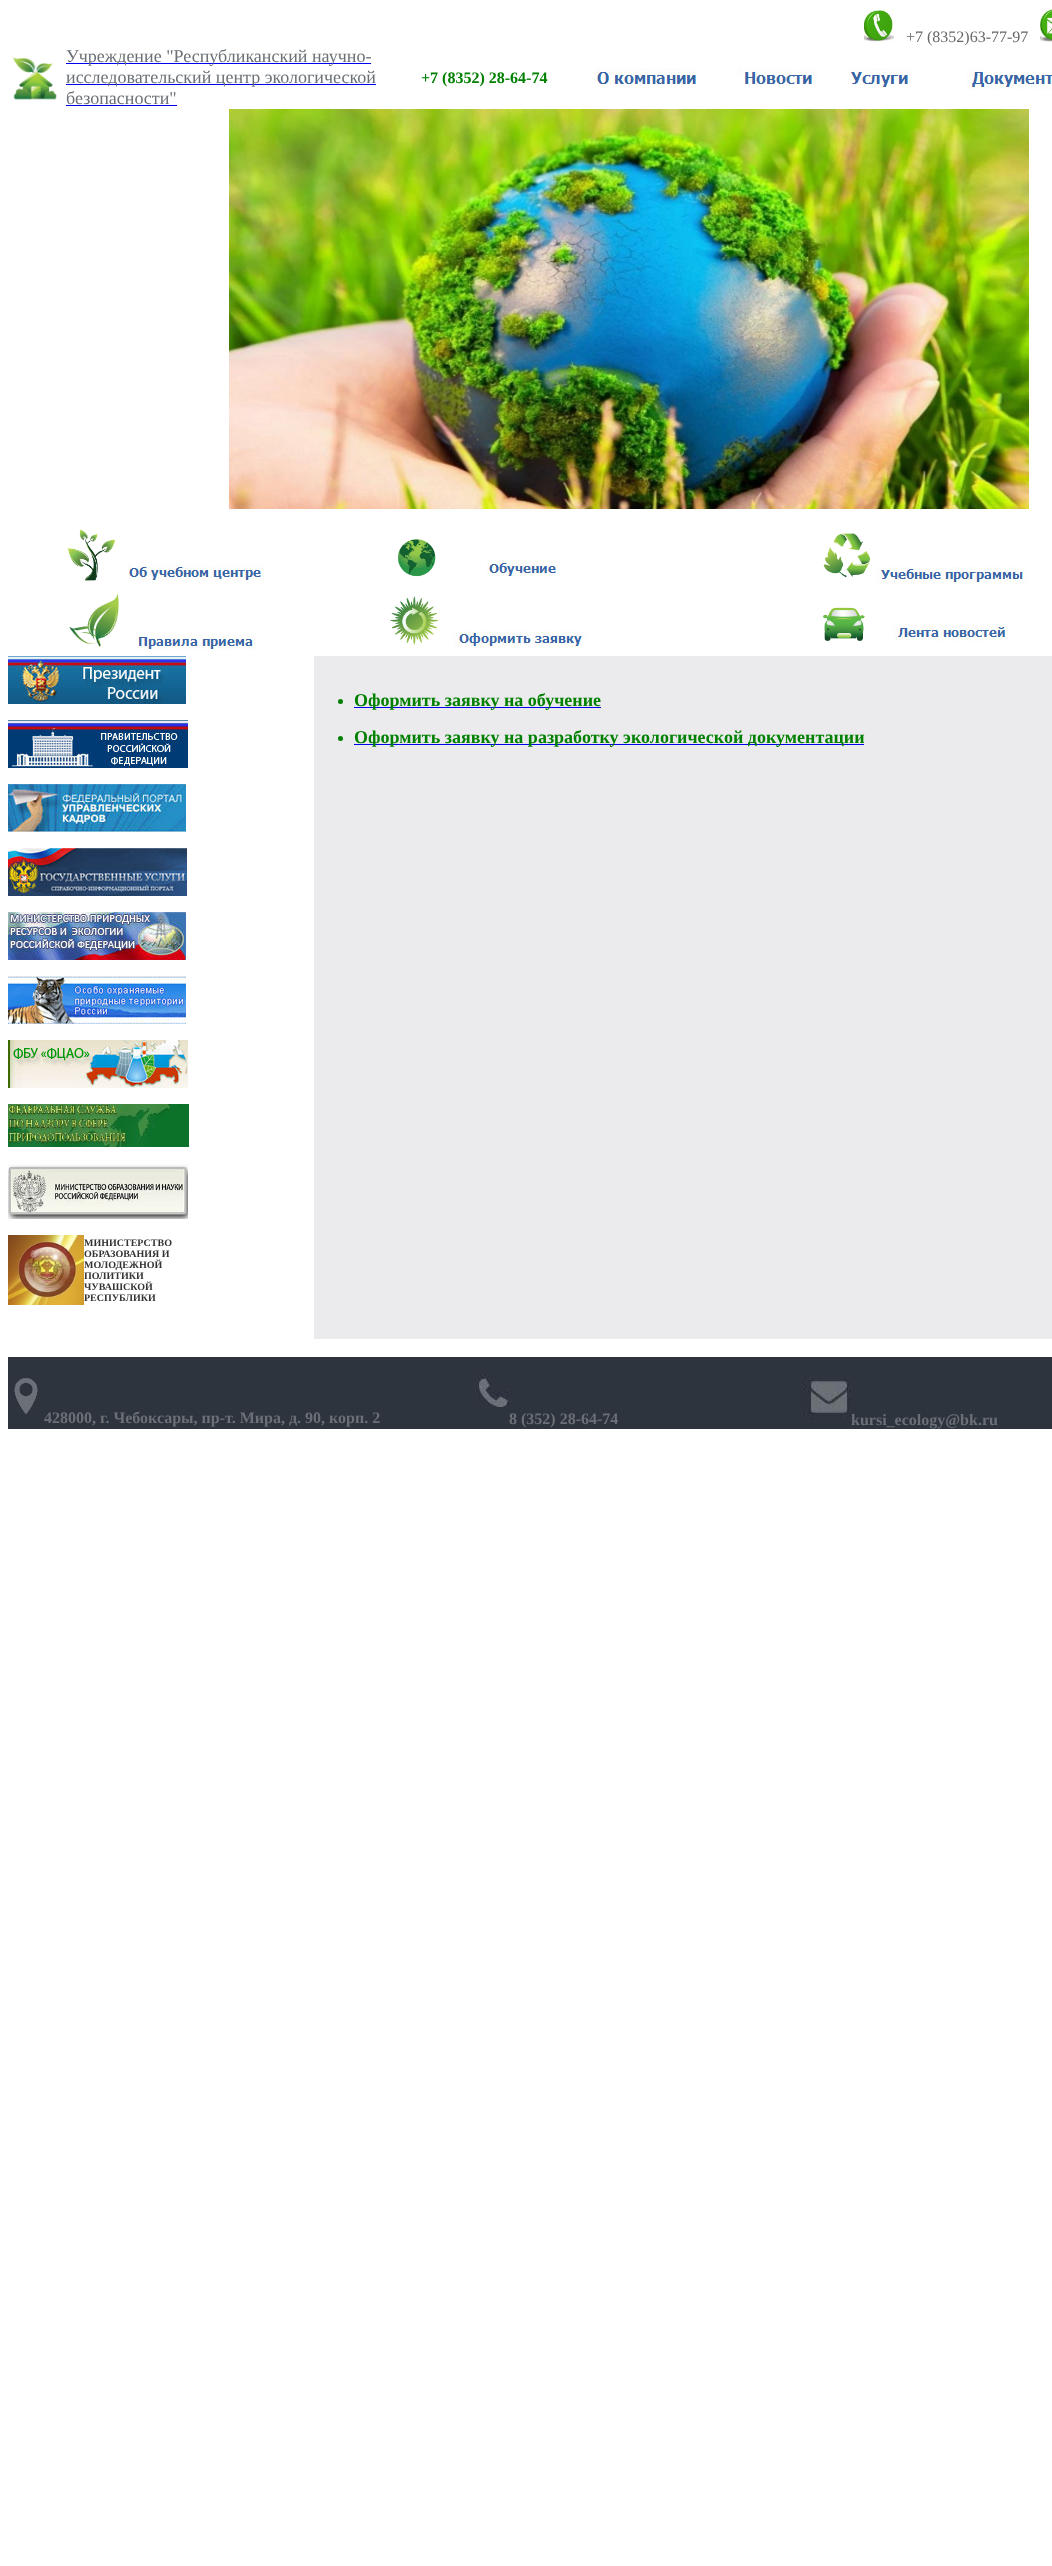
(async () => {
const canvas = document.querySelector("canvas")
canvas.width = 1052
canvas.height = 2566
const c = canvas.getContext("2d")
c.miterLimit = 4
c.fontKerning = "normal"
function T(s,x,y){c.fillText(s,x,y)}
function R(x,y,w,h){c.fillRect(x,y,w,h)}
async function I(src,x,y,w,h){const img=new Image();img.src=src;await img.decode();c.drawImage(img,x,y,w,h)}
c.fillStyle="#fff"
R(0,0,1052,2566)
await I("1.png",864,9,30,33)
c.font="16px Liberation Serif"
c.fillStyle="#666"
T("+7 (8352)63-77-97",906,42)
await I("2.png",1040,8,12,34)
await I("3.png",12,56,45,44)
c.fillStyle="#00e"
R(66,63,305,1)
c.font="18px Liberation Serif"
c.fillStyle="#6a7075"
T("Учреждение \"Республиканский научно-",66,62)
c.fillStyle="#00e"
R(66,84,310,1)
c.fillStyle="#6a7075"
T("исследовательский центр экологической",66,83)
T("безопасности\"",66,104)
c.fillStyle="#00e"
R(66,105,111,1)
c.font="bold 16px Liberation Serif"
c.fillStyle="#008000"
T("+7 (8352) 28-64-74",421,83)
await I("4.png",596,68,101,16)
await I("5.png",738,68,80,16)
await I("6.png",849,68,64,19)
await I("7.png",967,66,85,24)
await I("8.png",229,109,800,400)
await I("9.png",67,530,48,51)
await I("10.png",128,565,136,16)
await I("11.png",398,539,38,38)
await I("12.png",487,561,72,16)
await I("13.png",823,533,47,45)
await I("14.png",877,567,150,16)
await I("15.png",69,593,50,54)
await I("16.png",136,634,120,16)
await I("17.png",390,596,49,49)
await I("18.png",453,631,136,16)
await I("19.png",823,607,42,34)
await I("20.png",893,625,112,16)
c.fillStyle="#ebebed"
R(314,656,738,683)
c.fillStyle="#008000"
c.beginPath()
c.arc(340.5,701.5,2.5,0,7)
c.fill()
c.fillStyle="#00e"
R(354,707,247,1)
c.font="bold 18px Liberation Serif"
c.fillStyle="#008000"
T("Оформить заявку на обучение",354,706)
c.beginPath()
c.arc(340.5,738.5,2.5,0,7)
c.fill()
c.fillStyle="#00e"
R(354,744,510,1)
c.fillStyle="#008000"
T("Оформить заявку на разработку экологической документации",354,743)
await I("21.png",8,656,178,48)
await I("22.png",8,720,180,48)
await I("23.png",8,784,178,48)
await I("24.png",8,848,179,48)
await I("25.png",8,912,178,48)
await I("26.png",8,976,178,48)
await I("27.png",8,1040,180,48)
await I("28.png",8,1104,181,43)
await I("29.png",8,1164,180,55)
await I("30.png",8,1235,76,70)
c.font="bold 10px Liberation Serif"
c.fillStyle="#333"
T("МИНИСТЕРСТВО",84,1246)
T("ОБРАЗОВАНИЯ И",84,1257)
T("МОЛОДЕЖНОЙ",84,1268)
T("ПОЛИТИКИ",84,1279)
T("ЧУВАШСКОЙ",84,1290)
T("РЕСПУБЛИКИ",84,1301)
c.fillStyle="#2d343d"
R(8,1357,1044,72)
await I("31.png",8,1376,32,40)
c.font="bold 16px Liberation Serif"
c.fillStyle="#6a7075"
T("428000, г. Чебоксары, пр-т. Мира, д. 90, корп. 2",44,1423)
await I("32.png",475,1375,34,32)
T("8 (352) 28-64-74",509,1424)
await I("33.png",802,1377,49,42)
T("kursi_ecology@bk.ru",851,1425)
})()
